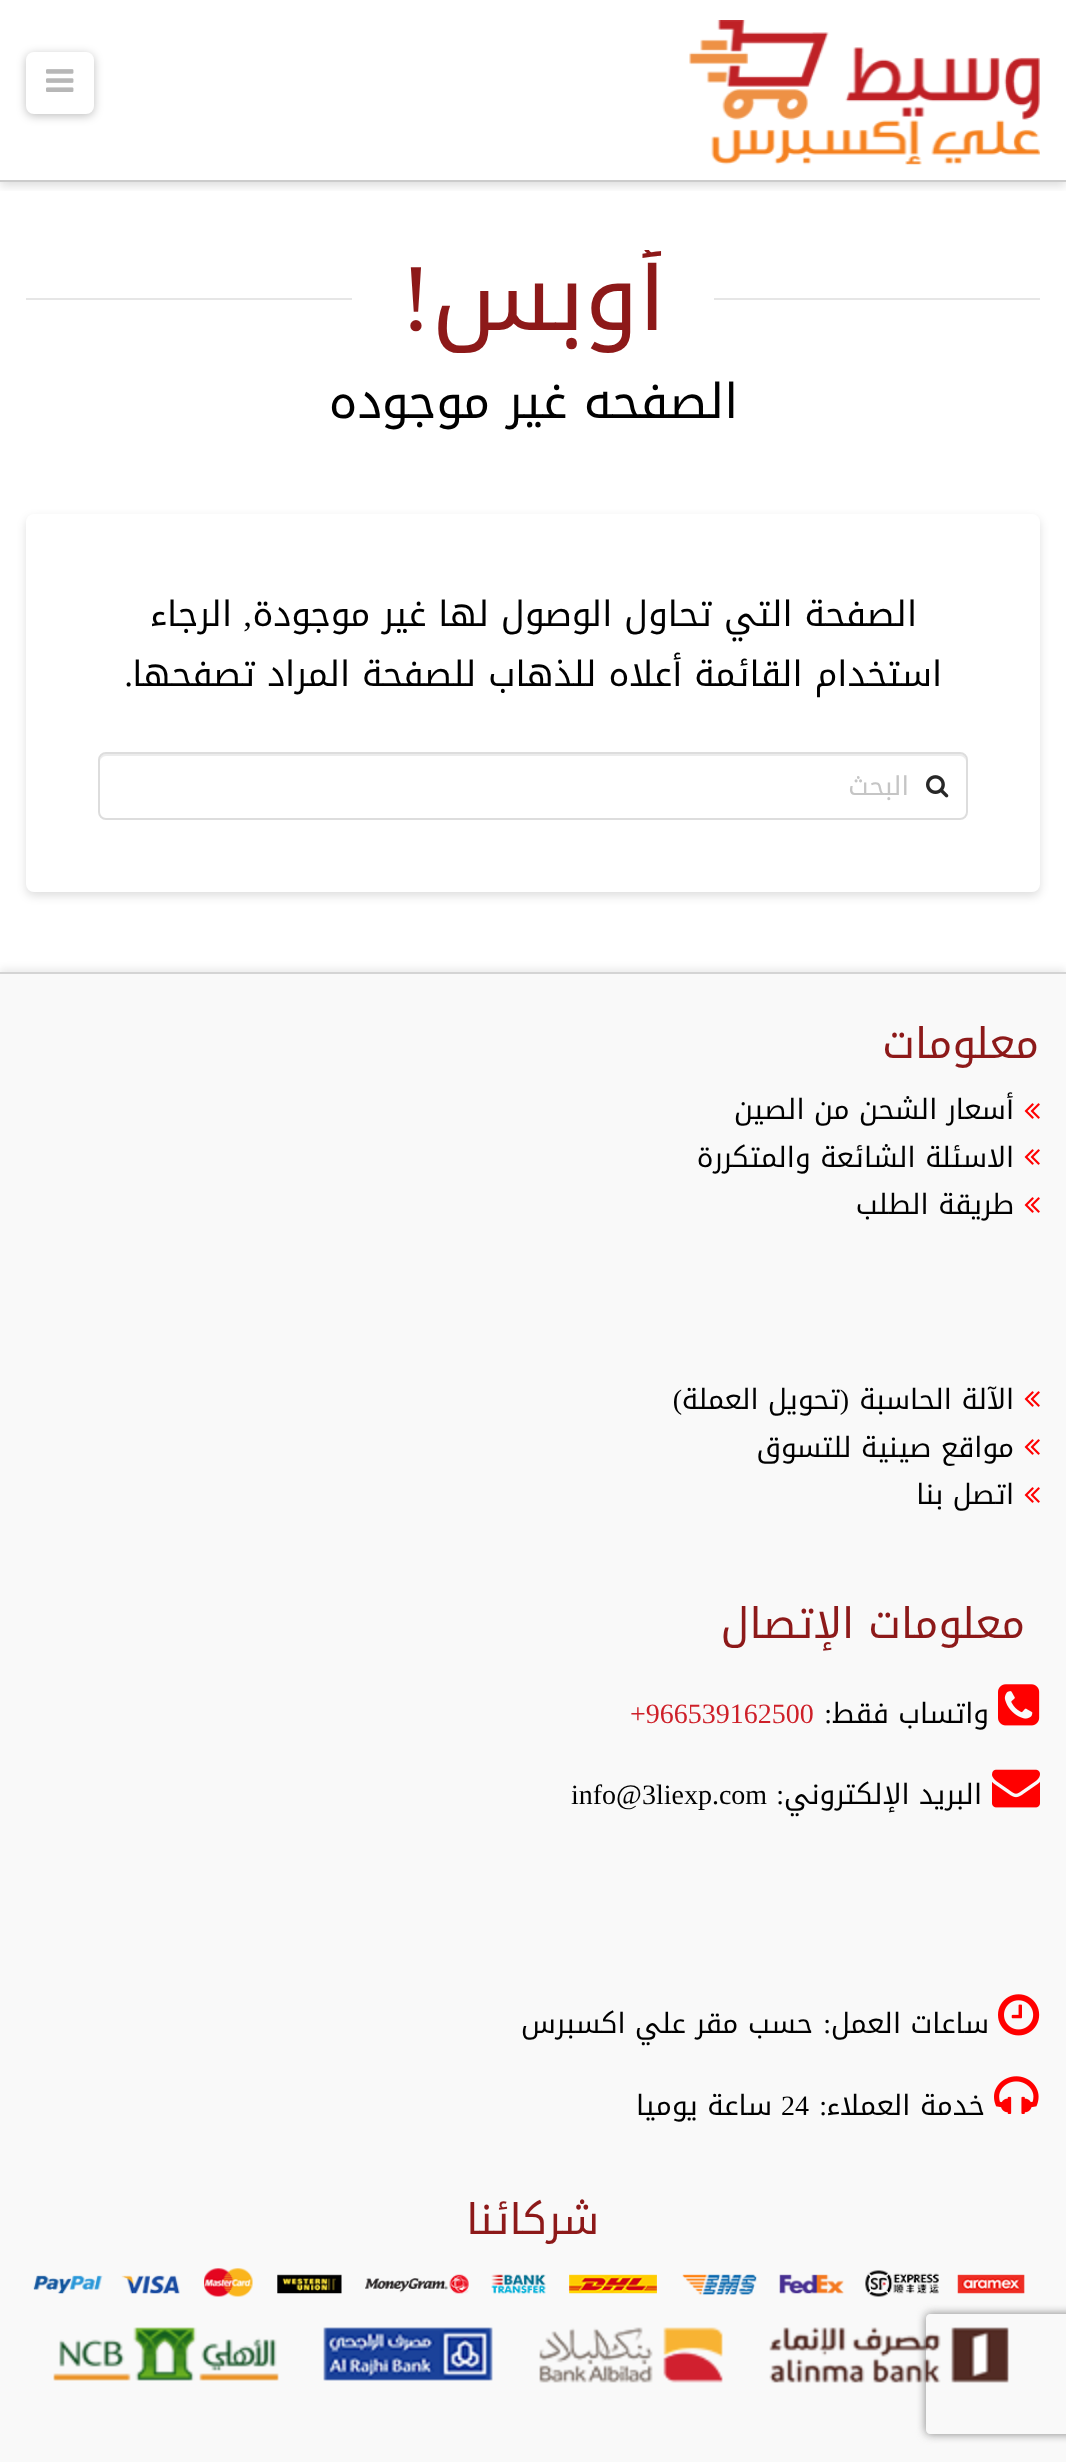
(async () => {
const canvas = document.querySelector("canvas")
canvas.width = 1066
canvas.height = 2462
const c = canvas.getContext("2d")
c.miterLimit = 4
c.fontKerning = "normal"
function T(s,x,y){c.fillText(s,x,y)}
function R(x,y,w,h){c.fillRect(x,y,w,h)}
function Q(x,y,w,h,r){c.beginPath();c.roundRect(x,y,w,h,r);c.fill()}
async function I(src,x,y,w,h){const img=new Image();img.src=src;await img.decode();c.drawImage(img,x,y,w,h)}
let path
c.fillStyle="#fff"
R(0,0,1066,2462)
c.save()
c.beginPath()
c.rect(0,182,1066,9)
c.clip()
c.fillStyle="#00000021"
c.filter="blur(5px)"
c.beginPath()
c.rect(0,4,1066,182)
c.fill()
c.filter="none"
c.restore()
c.fillStyle="#ccc"
R(0,180,1066,2)
await I("1.png",689,20,351,145)
c.fillStyle="#00000040"
c.filter="blur(5px)"
c.beginPath()
c.roundRect(26,54,68,62,8)
c.fill()
c.filter="none"
c.fillStyle="#fff"
Q(26,52,68,62,8)
await I("2.png",46,69,28,23)
c.fillStyle="#e6e6e6"
R(714,298,326,2)
c.save()
c.beginPath()
c.rect(26,250,1014,112)
c.clip()
c.direction="rtl"
c.font="96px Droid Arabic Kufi"
c.fillStyle="#8d1919"
T("أوبس",666,330)
c.restore()
c.direction="rtl"
c.font="96px Liberation Serif"
c.fillStyle="#8d1919"
T("!",432,330)
c.fillStyle="#e6e6e6"
R(26,298,326,2)
c.font="48px Droid Arabic Kufi"
c.fillStyle="#000"
T("الصفحه غير موجوده",738,418)
c.fillStyle="#00000021"
c.filter="blur(5px)"
c.beginPath()
c.roundRect(26,518,1014,378,8)
c.fill()
c.filter="none"
c.fillStyle="#fff"
Q(26,514,1014,378,8)
c.font="35px Droid Arabic Kufi"
c.fillStyle="#000"
T("الصفحة التي تحاول الوصول لها غير موجودة",917,626)
c.font="35px Liberation Serif"
T(",",252,626)
c.font="35px Droid Arabic Kufi"
T("الرجاء",232,626)
T("استخدام القائمة أعلاه للذهاب للصفحة المراد تصفحها",942,686)
c.font="35px Liberation Serif"
T(".",133,686)
c.fillStyle="#ececec"
path = new Path2D("M106 756h854c3 0 6 3 6 6c0-4-1-8-6-8h-854c-5 0-6 4-6 8c0-3 3-6 6-6z")
c.fill(path)
c.beginPath()
c.roundRect(99,753,868,66,7)
c.strokeStyle="#ddd"
c.lineWidth=2
c.stroke()
await I("3.png",926,775,23,23)
c.font="26px Droid Arabic Kufi"
c.fillStyle="#c5c5c5"
T("البحث",909,795)
c.fillStyle="#00000012"
c.filter="blur(3.5px)"
c.beginPath()
c.rect(0,968,1066,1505)
c.fill()
c.filter="none"
c.fillStyle="#f9f9f9"
R(0,974,1066,1488)
c.fillStyle="#d4d4d4"
R(0,972,1066,2)
c.font="42px Droid Arabic Kufi"
c.fillStyle="#8d1919"
T("معلومات",1039,1058)
await I("4.png",1024,1103,16,16)
c.font="28px Droid Arabic Kufi"
c.fillStyle="#000"
T("أسعار الشحن من الصين",1014,1119)
await I("4.png",1024,1149,16,16)
T("الاسئلة الشائعة والمتكررة",1014,1167)
await I("4.png",1024,1197,16,16)
T("طريقة الطلب",1014,1214)
await I("4.png",1024,1391,16,16)
T("الآلة الحاسبة",1014,1409)
c.font="28px Liberation Serif"
T("(",849,1409)
c.font="28px Droid Arabic Kufi"
T("تحويل العملة",840,1409)
c.font="28px Liberation Serif"
T(")",682,1409)
await I("4.png",1024,1439,16,16)
c.font="28px Droid Arabic Kufi"
T("مواقع صينية للتسوق",1014,1457)
await I("4.png",1024,1487,16,16)
T("اتصل بنا",1014,1504)
c.font="42px Droid Arabic Kufi"
c.fillStyle="#8d1919"
T("معلومات الإتصال",1025,1638)
await I("5.png",998,1684,42,42)
c.font="28px Droid Arabic Kufi"
c.fillStyle="#000"
T("واتساب فقط",989,1723)
c.font="28px Liberation Serif"
T(":",832,1723)
c.direction="ltr"
c.fillStyle="#ce2029"
T("+966539162500",630,1723)
await I("6.png",992,1769,48,39)
c.direction="rtl"
c.font="28px Droid Arabic Kufi"
c.fillStyle="#000"
T("البريد الإلكتروني",982,1804)
c.font="28px Liberation Serif"
T(":",784,1804)
c.direction="ltr"
T("info@3liexp.com",571,1804)
await I("7.png",998,1994,42,42)
c.direction="rtl"
c.font="28px Droid Arabic Kufi"
T("ساعات العمل",989,2033)
c.font="28px Liberation Serif"
T(":",831,2033)
c.font="28px Droid Arabic Kufi"
T("حسب مقر علي اكسبرس",813,2033)
await I("8.png",994,2076,45,38)
T("خدمة العملاء",985,2115)
c.font="28px Liberation Serif"
T(":",827,2115)
c.direction="ltr"
T("24",781,2115)
c.direction="rtl"
c.font="28px Droid Arabic Kufi"
T("ساعة يوميا",772,2115)
c.font="42px Droid Arabic Kufi"
c.fillStyle="#8d1919"
T("شركائنا",599,2234)
await I("9.png",33,2268,992,29)
await I("10.png",53,2327,956,56)
c.save()
path = new Path2D("M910 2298h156v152h-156zm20 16h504c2 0 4 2 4 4v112c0 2-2 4-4 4h-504c-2 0-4-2-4-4v-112c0-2 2-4 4-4z")
c.clip(path,"evenodd")
c.fillStyle="#808080"
c.filter="blur(5px)"
c.beginPath()
c.roundRect(926,2314,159,120,4)
c.fill()
c.filter="none"
c.restore()
})()
